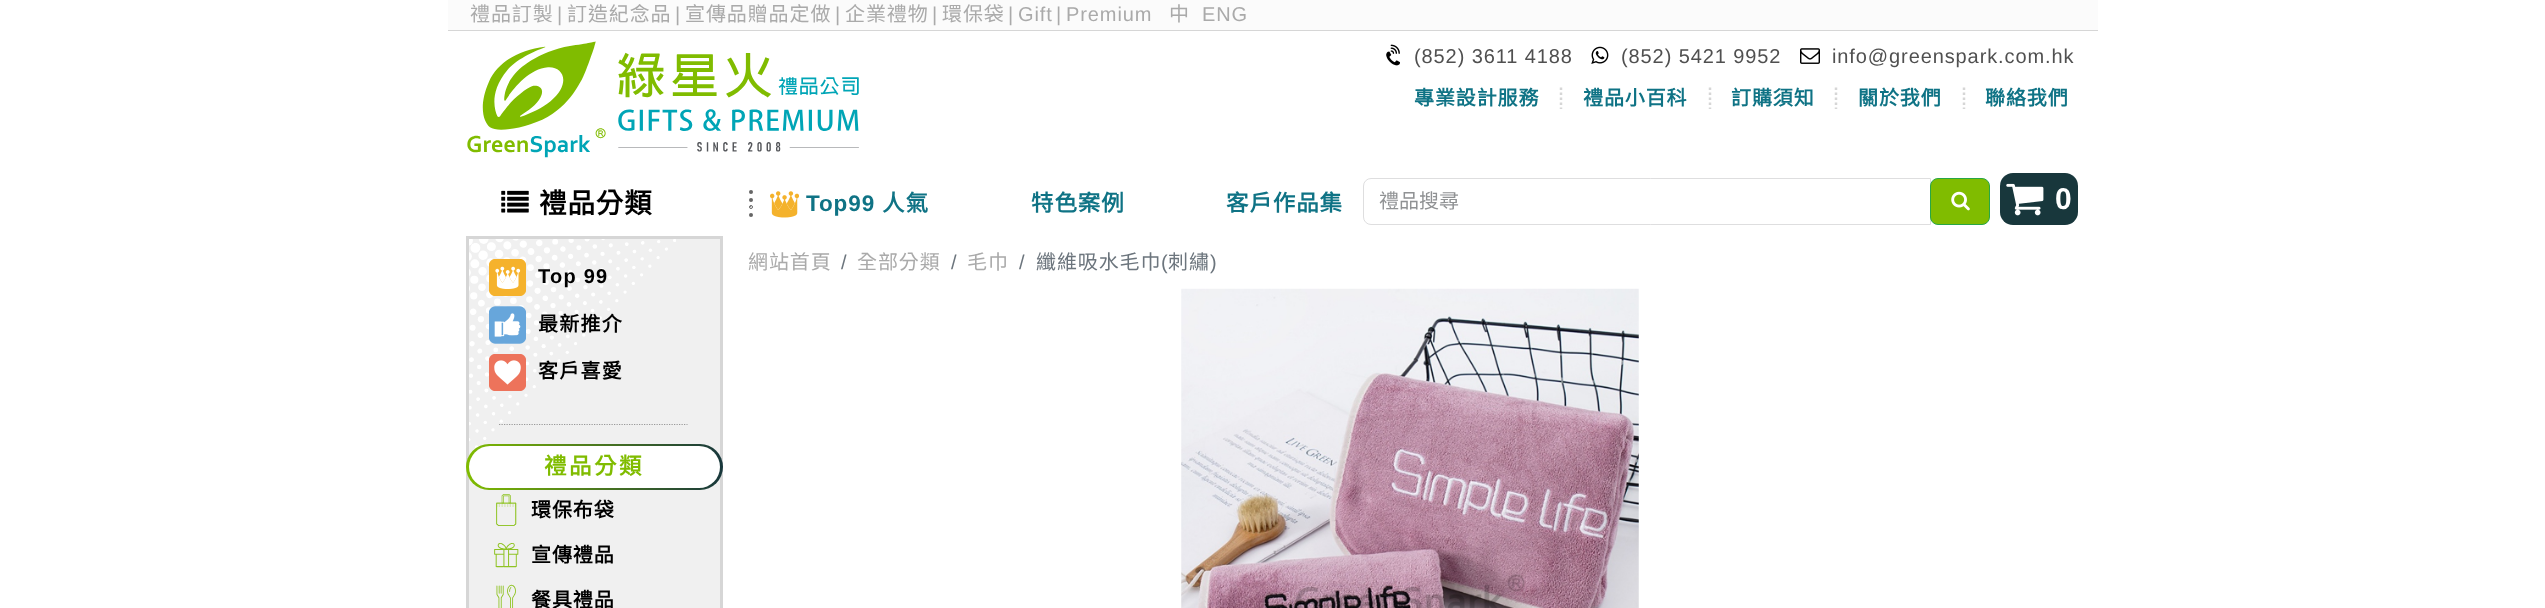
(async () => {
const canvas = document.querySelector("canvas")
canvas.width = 2545
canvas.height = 608
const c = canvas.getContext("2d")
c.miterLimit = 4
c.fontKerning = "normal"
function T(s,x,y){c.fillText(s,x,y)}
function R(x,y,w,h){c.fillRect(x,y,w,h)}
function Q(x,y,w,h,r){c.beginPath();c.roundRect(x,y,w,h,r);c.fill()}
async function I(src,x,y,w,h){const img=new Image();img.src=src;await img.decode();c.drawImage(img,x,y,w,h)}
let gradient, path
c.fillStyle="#fff"
R(0,0,2545,608)
c.fillStyle="#fbfbfb"
R(448,0,1650,30)
c.fillStyle="#d6d6d6"
R(448,30,1650,1)
c.letterSpacing="0.9px"
c.font="20px Noto Sans CJK TC"
c.fillStyle="#aaa"
T("禮品訂製",470,21)
c.font="20px Liberation Sans"
T("|",557,21)
c.font="20px Noto Sans CJK TC"
T("訂造紀念品",567,21)
c.font="20px Liberation Sans"
T("|",675,21)
c.font="20px Noto Sans CJK TC"
T("宣傳品贈品定做",685,21)
c.font="20px Liberation Sans"
T("|",835,21)
c.font="20px Noto Sans CJK TC"
T("企業禮物",845,21)
c.font="20px Liberation Sans"
T("|",932,21)
c.font="20px Noto Sans CJK TC"
T("環保袋",942,21)
c.font="20px Liberation Sans"
T("|",1008,21)
T("Gift",1018,21)
T("|",1056,21)
T("Premium",1066,21)
c.font="20px Noto Sans CJK TC"
T("中",1169,21)
c.font="20px Liberation Sans"
T("ENG",1202,21)
await I("1.png",467,41,392,117)
await I("2.png",1386,44,14,22)
c.fillStyle="#505050"
T("(852) 3611 4188",1414,63)
await I("3.png",1591,46,18,18)
T("(852) 5421 9952",1621,63)
await I("4.png",1800,48,20,16)
T("info@greenspark.com.hk",1832,63)
c.font="bold 20px Noto Sans CJK TC"
c.fillStyle="#0f7385"
T("專業設計服務",1414,105)
path = new Path2D("M1561 87.5v21.5")
c.strokeStyle="#d6d6d6"
c.lineWidth=2.5
c.setLineDash([2.5,2.5])
c.stroke(path)
T("禮品小百科",1583,105)
path = new Path2D("M1710 87.5v21.5")
c.stroke(path)
T("訂購須知",1731,105)
path = new Path2D("M1836 87.5v21.5")
c.stroke(path)
T("關於我們",1858,105)
path = new Path2D("M1964 87.5v21.5")
c.stroke(path)
T("聯絡我們",1985,105)
await I("5.png",501,190,28,23)
c.font="bold 27.5px Noto Sans CJK TC"
c.fillStyle="#000"
T("禮品分類",539,213)
c.fillStyle="#666"
c.beginPath()
c.arc(751,200,2,0,7)
c.fill()
c.beginPath()
c.arc(751,192,2,0,7)
c.fill()
c.beginPath()
c.arc(751,215,2,0,7)
c.fill()
c.beginPath()
c.arc(751,207,1.5,0,7)
c.strokeStyle="#666"
c.lineWidth=1
c.setLineDash([])
c.stroke()
c.beginPath()
c.arc(750.5,206.5,.5,0,7)
c.fill()
await I("6.png",770,191,29,27)
c.font="bold 22.5px Liberation Sans"
c.fillStyle="#0f7385"
T("Top99",806,211)
c.font="bold 22.5px Noto Sans CJK TC"
T("人氣",882,211)
T("特色案例",1031,211)
T("客戶作品集",1226,211)
c.beginPath()
c.roundRect(1363.5,178.5,567,46,[7.5,0,0,7.5])
c.strokeStyle="#dededf"
c.stroke()
c.letterSpacing="0px"
c.font="20px Noto Sans CJK TC"
c.fillStyle="#909294"
T("禮品搜尋",1379,208)
c.fillStyle="#80bc00"
c.beginPath()
c.roundRect(1930.5,178.5,59,46,7.5)
c.fill()
c.strokeStyle="#28a745"
c.stroke()
await I("7.png",1951,191,19,20)
c.fillStyle="#18373c"
Q(2000,173,78,52,13)
await I("8.png",2006,183,38,33)
c.font="bold 30px Liberation Sans"
c.fillStyle="#fff"
T("0",2055,209)
c.letterSpacing="0.9px"
c.font="20px Noto Sans CJK TC"
c.fillStyle="#aaa"
T("網站首頁",748,269)
c.font="20px Liberation Sans"
c.fillStyle="#6c757d"
T("/",841,269)
c.font="20px Noto Sans CJK TC"
c.fillStyle="#aaa"
T("全部分類",857,269)
c.font="20px Liberation Sans"
c.fillStyle="#6c757d"
T("/",951,269)
c.font="20px Noto Sans CJK TC"
c.fillStyle="#aaa"
T("毛巾",967,269)
c.font="20px Liberation Sans"
c.fillStyle="#6c757d"
T("/",1019,269)
c.font="20px Noto Sans CJK TC"
T("纖維吸水毛巾",1036,269)
c.font="20px Liberation Sans"
T("(",1161,269)
c.font="20px Noto Sans CJK TC"
T("刺繡",1168,269)
c.font="20px Liberation Sans"
T(")",1210,269)
await I("9.png",1181,288,458,320)
c.fillStyle="#f0f0f0"
R(469,239,251,369)
await I("10.png",469,239,207,209)
c.strokeStyle="#d6d6d6"
c.lineWidth=3
c.strokeRect(467.5,237.5,254,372)
await I("11.png",489,259,37,37)
c.letterSpacing="1.25px"
c.font="bold 20px Liberation Sans"
c.fillStyle="#000"
T("Top 99",538,283)
await I("12.png",489,306,37,38)
c.font="bold 20px Noto Sans CJK TC"
T("最新推介",538,331)
await I("13.png",489,354,37,37)
T("客戶喜愛",538,378)
path = new Path2D("M499 424.5h188.5")
c.strokeStyle="#999"
c.lineWidth=1.2
c.setLineDash([1.25,1.25])
c.stroke(path)
gradient = c.createLinearGradient(466,467,723,467)
gradient.addColorStop(0,"#80bc00")
gradient.addColorStop(1,"#18373c")
c.fillStyle = gradient
Q(466,444,257,46,23)
c.fillStyle="#fff"
Q(469,446,251,42,21)
c.letterSpacing="2.5px"
c.font="bold 22.5px Noto Sans CJK TC"
c.fillStyle="#80bc00"
T("禮品分類",544,474)
await I("14.png",496,494,21,32)
c.letterSpacing="0.9px"
c.font="bold 20px Noto Sans CJK TC"
c.fillStyle="#000"
T("環保布袋",531,517)
await I("15.png",494,543,25,25)
T("宣傳禮品",531,562)
await I("16.png",496,584,20,24)
T("餐具禮品",531,607)
})()
